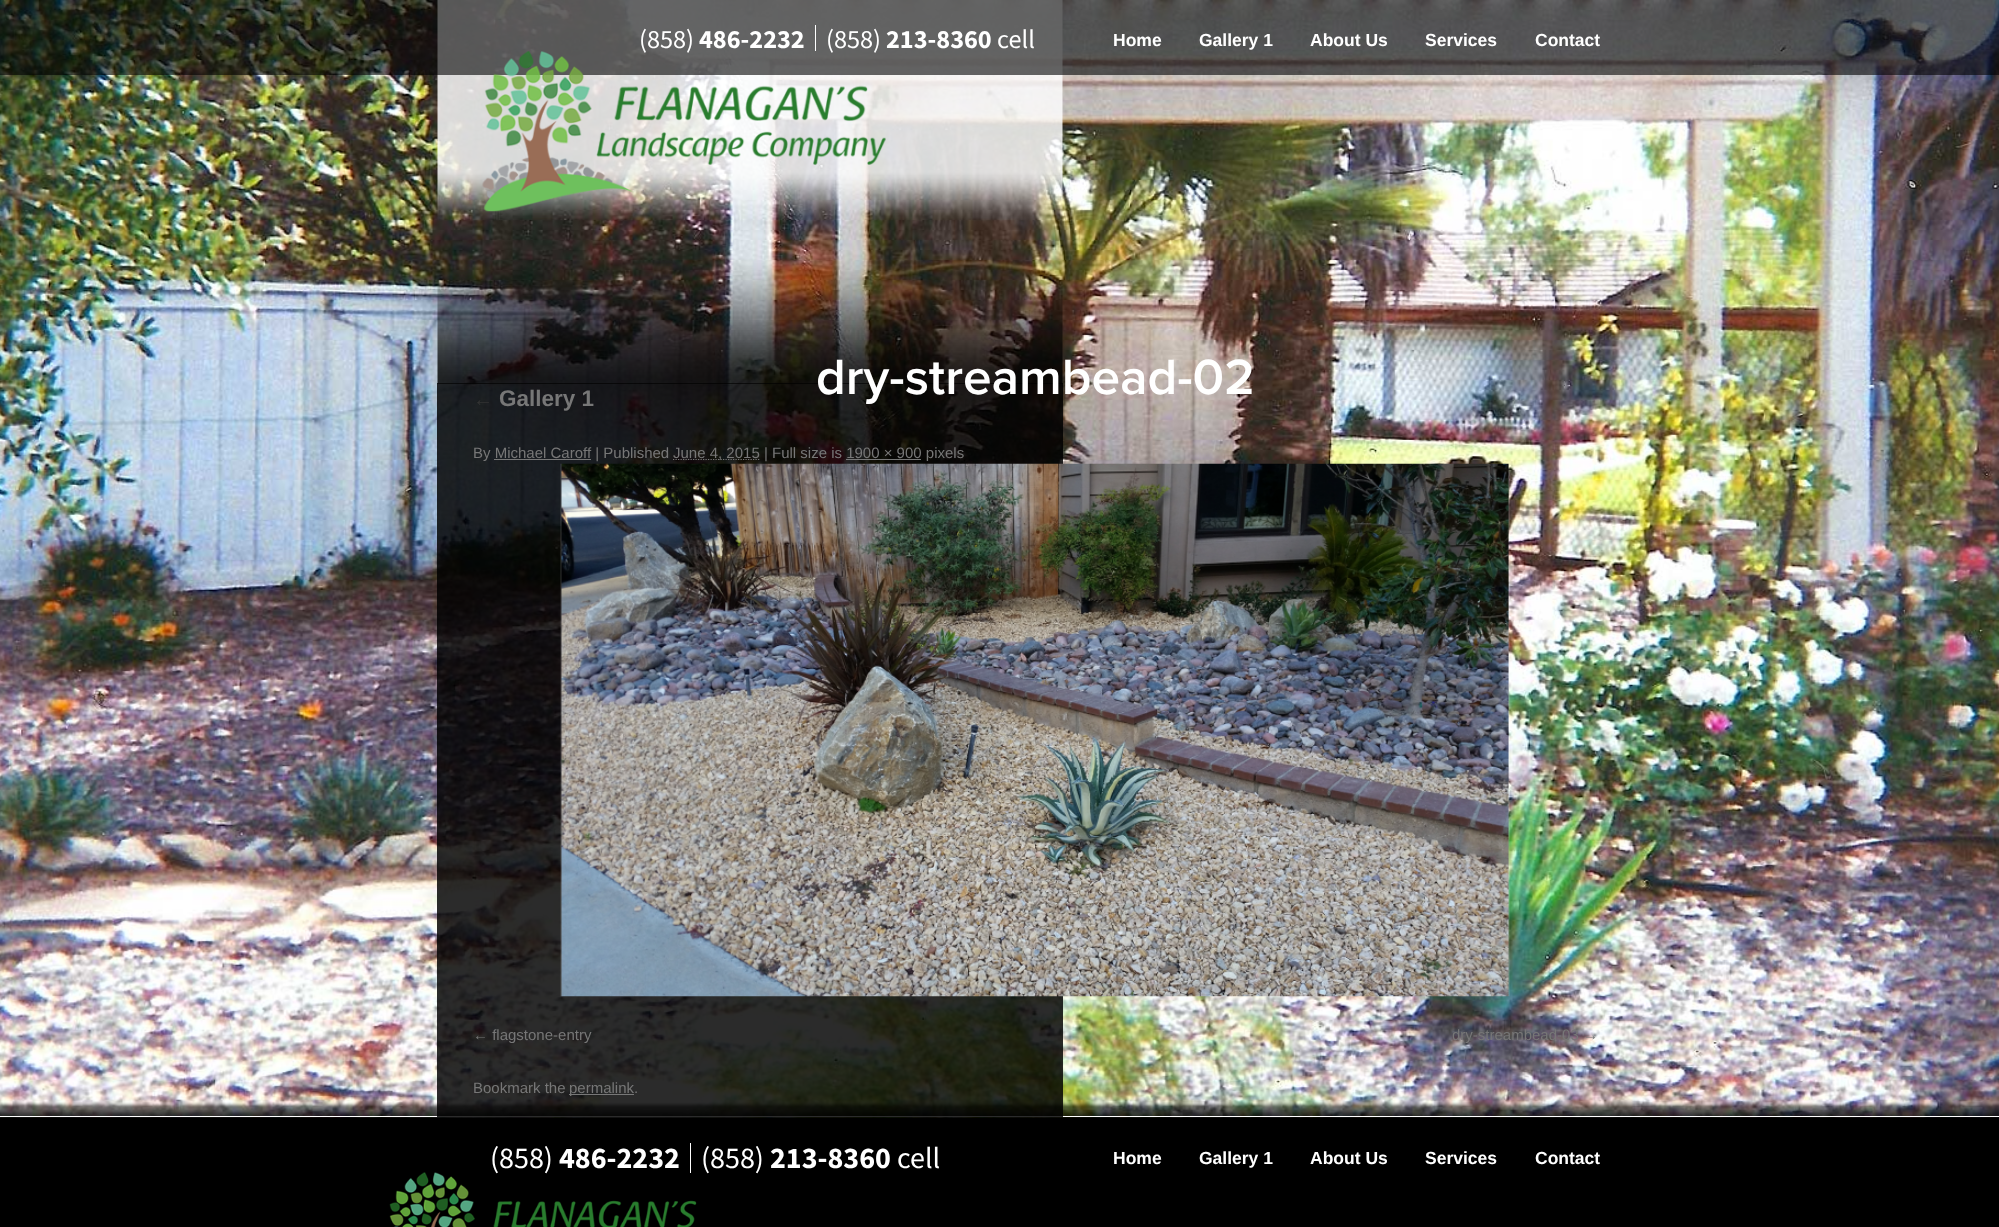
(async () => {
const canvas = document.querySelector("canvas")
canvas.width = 1999
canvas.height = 1227
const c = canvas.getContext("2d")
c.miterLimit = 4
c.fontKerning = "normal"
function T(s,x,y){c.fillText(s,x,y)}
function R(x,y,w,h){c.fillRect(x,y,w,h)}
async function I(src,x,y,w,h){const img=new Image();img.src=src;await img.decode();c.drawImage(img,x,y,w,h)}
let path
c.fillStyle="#000"
R(0,0,1999,1227)
await I("1.png",0,0,1999,1118)
await I("2.png",437,0,626,384)
c.fillStyle="#00000099"
R(0,0,1999,75)
c.fillStyle="#fff"
R(815,25,1,26)
await I("3.png",482,51,404,161)
c.font="26.25px Source Sans Pro"
T("(858)",639,48)
c.font="bold 26.25px Source Sans Pro"
T("486-2232",699,48)
c.font="26.25px Source Sans Pro"
T("(858)",826,48)
c.font="bold 26.25px Source Sans Pro"
T("213-8360",886,48)
c.font="26.25px Source Sans Pro"
T("cell",997,48)
c.font="bold 17.5px Liberation Sans"
T("Home",1113,46)
T("Gallery 1",1199,46)
T("About Us",1310,46)
T("Services",1425,46)
T("Contact",1535,46)
R(0,1116,1999,1)
c.fillStyle="#000000d4"
R(437,383,626,734)
c.font="600 51.25px Proxima Nova"
c.fillStyle="#fff"
T("dry-streambead-02",816,394)
c.font="15px Liberation Sans"
c.fillStyle="#777"
T("By Michael Caroff | Published",473,458)
path = new Path2D("M673 459.5h86.5")
c.strokeStyle="#777"
c.lineWidth=1.2
c.setLineDash([1.25,1.25])
c.stroke(path)
T("June 4, 2015 | Full size is 1900 × 900 pixels",673,458)
R(494,459,97,1)
R(846,459,75,1)
await I("4.png",560,463,950,534)
T("← flagstone-entry",473,1040)
T("dry-streambead-03 →",1452,1040)
T("Bookmark the",473,1093)
R(569,1094,65,1)
T("permalink.",569,1093)
c.font="italic 20px Liberation Serif"
c.fillStyle="#333"
T("←",473,406)
c.font="bold 22.5px Liberation Sans"
c.fillStyle="#777"
T("Gallery 1",499,406)
await I("5.png",389,1172,308,55)
c.fillStyle="#fff"
R(690,1143,1,30)
c.font="30px Source Sans Pro"
T("(858)",490,1168)
c.font="bold 30px Source Sans Pro"
T("486-2232",559,1168)
c.font="30px Source Sans Pro"
T("(858)",701,1168)
c.font="bold 30px Source Sans Pro"
T("213-8360",770,1168)
c.font="30px Source Sans Pro"
T("cell",897,1168)
c.font="bold 17.5px Liberation Sans"
T("Home",1113,1164)
T("Gallery 1",1199,1164)
T("About Us",1310,1164)
T("Services",1425,1164)
T("Contact",1535,1164)
})()
